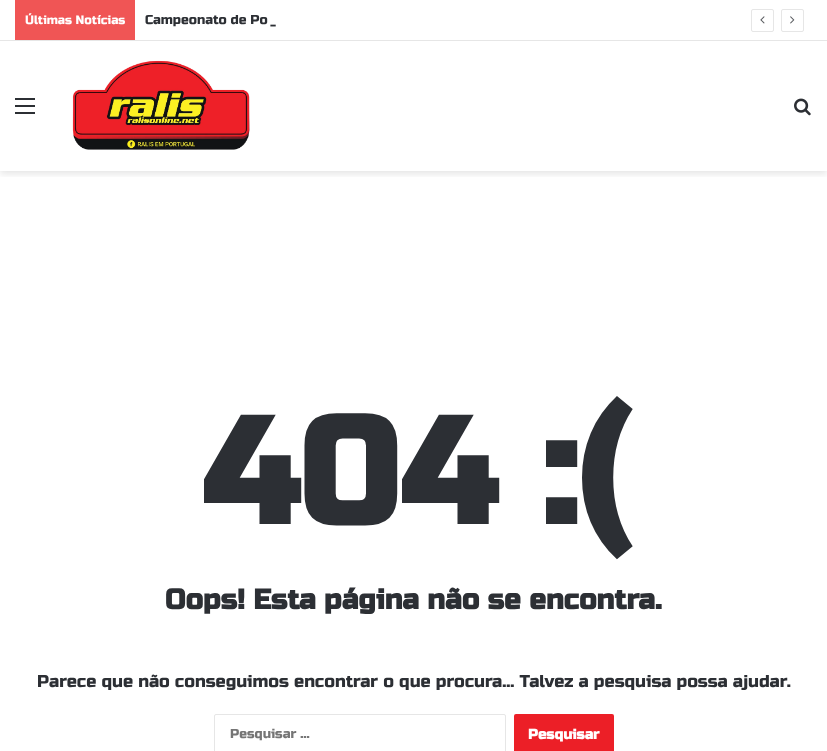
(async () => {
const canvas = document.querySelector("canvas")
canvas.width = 827
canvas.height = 751
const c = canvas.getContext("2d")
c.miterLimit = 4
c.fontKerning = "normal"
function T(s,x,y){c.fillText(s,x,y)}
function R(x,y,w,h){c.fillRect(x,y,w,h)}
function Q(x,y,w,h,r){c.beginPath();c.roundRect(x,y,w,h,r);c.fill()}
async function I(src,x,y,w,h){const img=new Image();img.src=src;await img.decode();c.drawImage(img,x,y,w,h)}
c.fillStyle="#fff"
R(0,0,827,751)
c.save()
c.beginPath()
c.rect(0,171,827,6)
c.clip()
c.fillStyle="#0000001a"
c.filter="blur(3.5px)"
c.beginPath()
c.rect(0,44,827,130)
c.fill()
c.filter="none"
c.restore()
c.fillStyle="#e6e6e6"
R(0,40,827,1)
c.fillStyle="#f05555"
R(15,0,120,40)
c.font="12px Russo One"
c.fillStyle="#fff"
T("Últimas Notícias",25,24)
c.font="13px Russo One"
c.fillStyle="#2c2f34"
T("Campeonato de Po",145,24)
T("_",270,24)
c.beginPath()
c.roundRect(751.5,9.5,22,22,1.5)
c.strokeStyle="#e6e6e6"
c.stroke()
await I("1.png",760,16,5,8)
c.beginPath()
c.roundRect(781.5,9.5,22,22,1.5)
c.stroke()
await I("2.png",790,16,5,8)
R(15,105,20,2)
R(15,98,20,2)
R(15,112,20,2)
await I("3.png",72,60,178,90)
await I("4.png",794,98,17,18)
c.font="bold 150px Russo One"
T("404 :(",201,524)
c.font="bold 28px Russo One"
T("Oops! Esta página não se encontra.",165,609)
c.font="17px Russo One"
T("Parece que não conseguimos encontrar o que procura... Talvez a pesquisa possa ajudar.",37,687)
c.beginPath()
c.roundRect(214.5,714.5,291,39,1.5)
c.stroke()
c.font="13px Russo One"
c.fillStyle="#757575"
T("Pesquisar …",230,738)
c.fillStyle="#ec1f27"
Q(514,714,100,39,2)
c.font="bold 14px Russo One"
c.fillStyle="#fff"
T("Pesquisar",528,739)
})()
